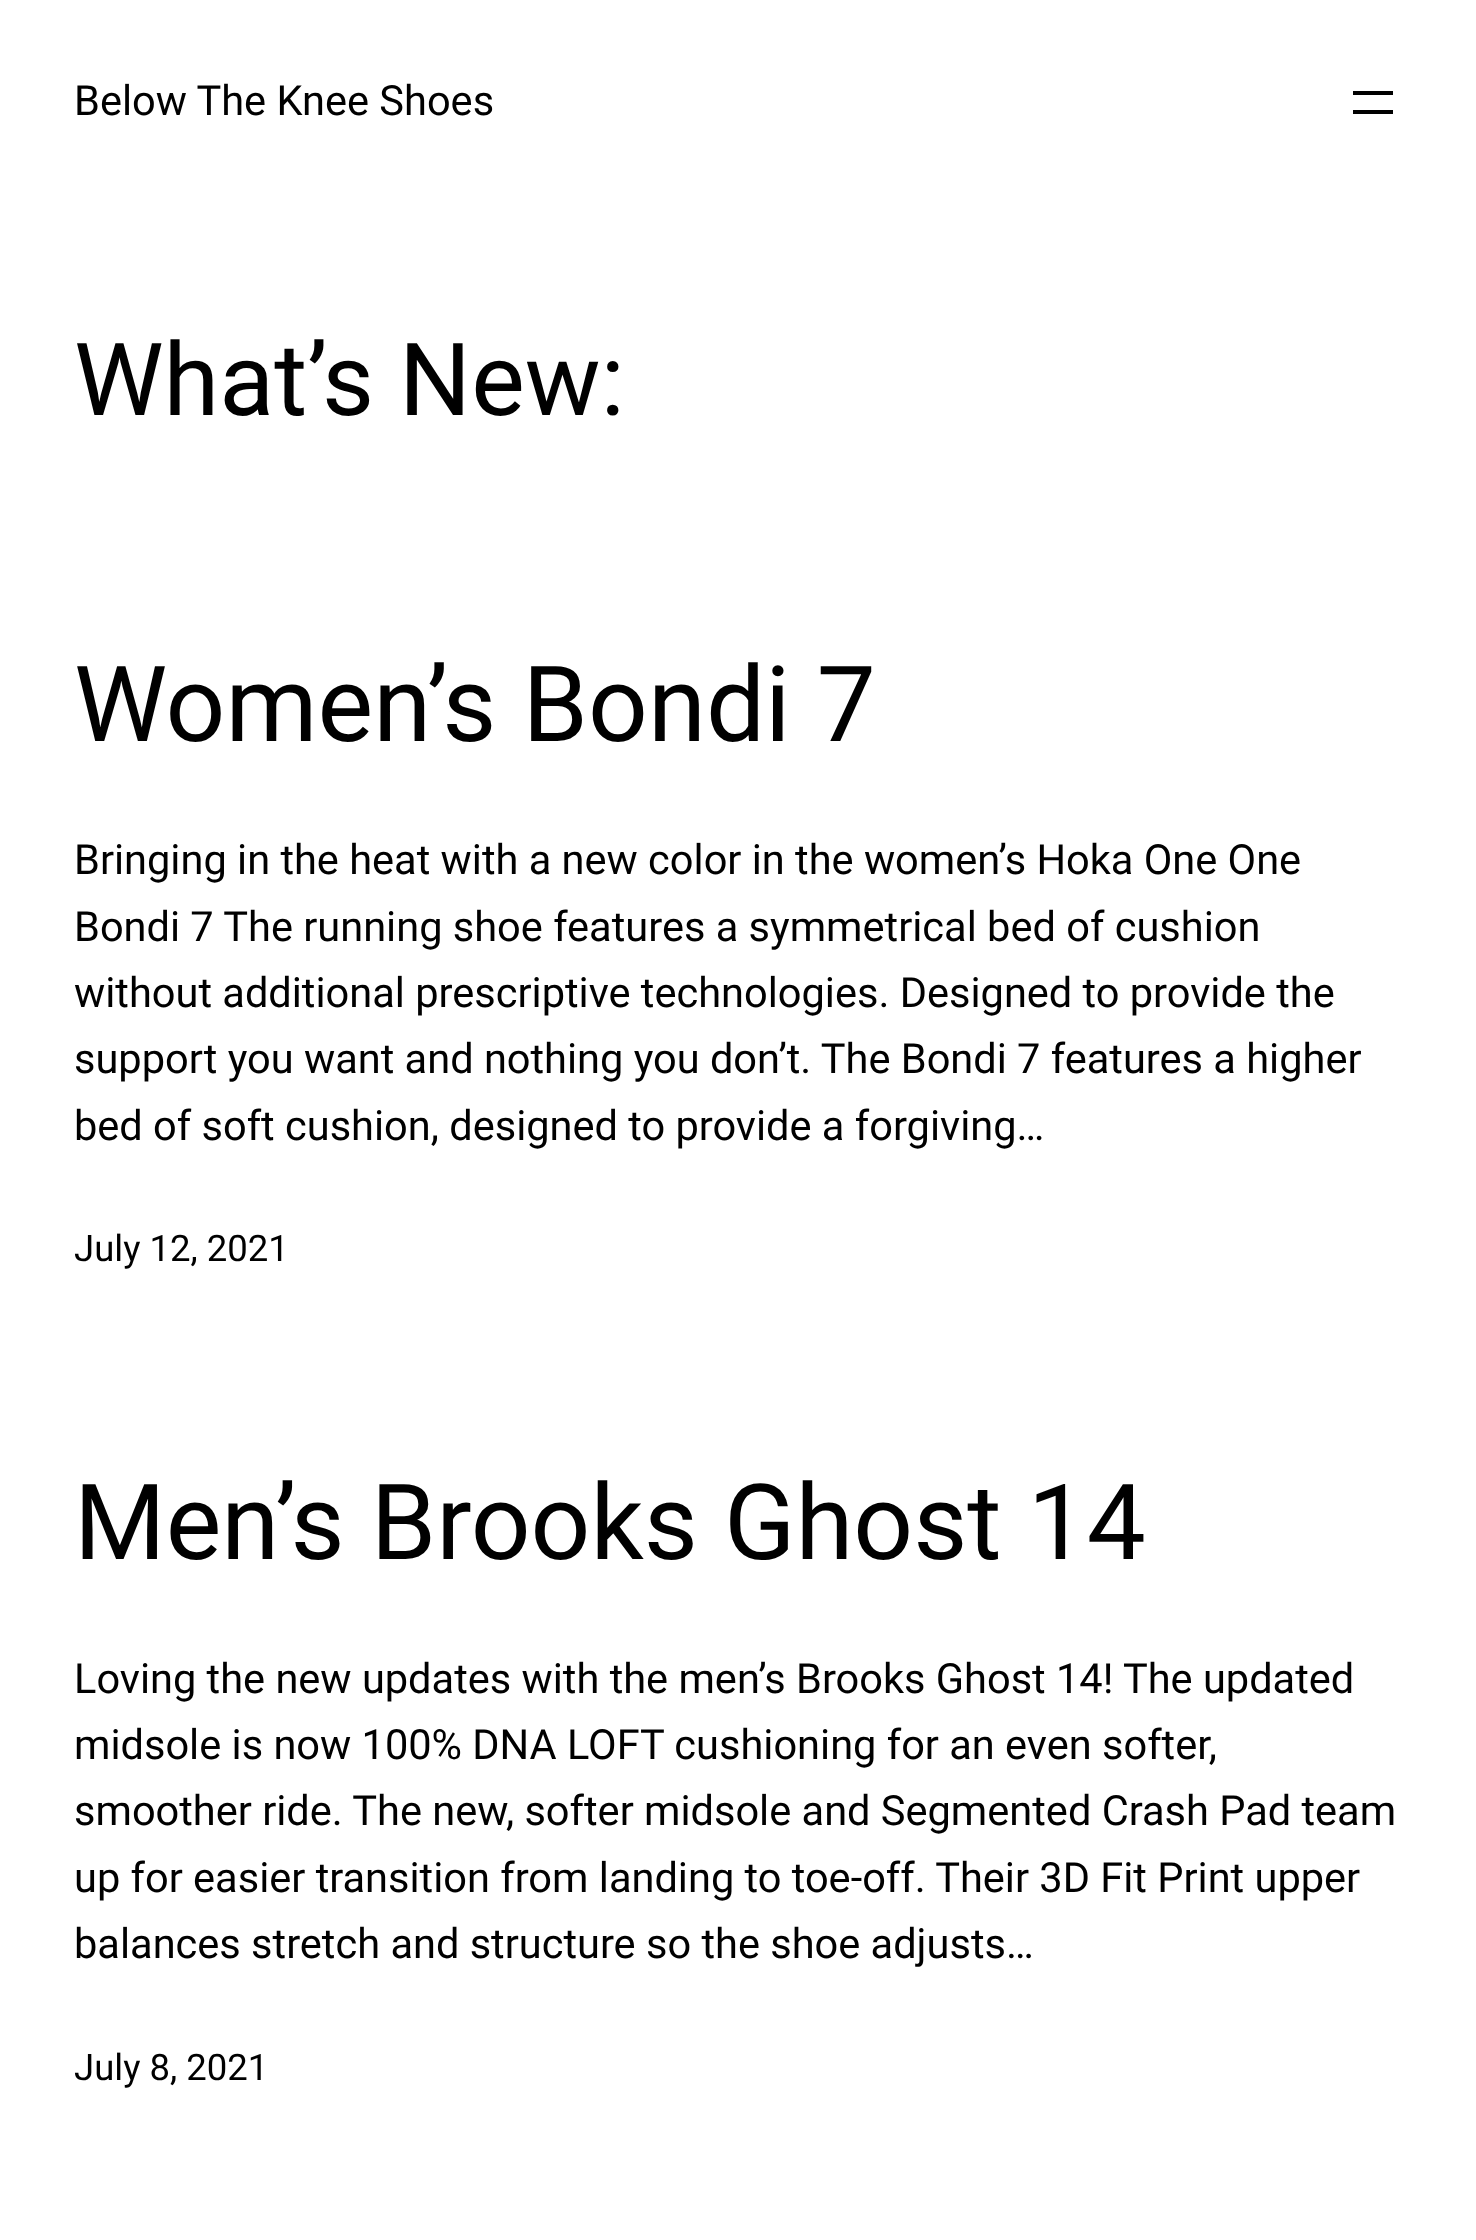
(async () => {
const canvas = document.querySelector("canvas")
canvas.width = 1476
canvas.height = 2240
const c = canvas.getContext("2d")
c.miterLimit = 4
c.fontKerning = "normal"
function T(s,x,y){c.fillText(s,x,y)}
function R(x,y,w,h){c.fillRect(x,y,w,h)}
c.fillStyle="#fff"
R(0,0,1476,2240)
c.font="41.55px Roboto"
c.fillStyle="#000"
T("Below The Knee Shoes",74,115)
R(1353,91,40,4)
R(1353,110,40,4)
c.font="101px Roboto"
T("What’s New:",74,415)
c.font="105px Roboto"
T("Women’s Bondi 7",74,741)
c.font="41.55px Roboto"
T("Bringing in the heat with a new color in the women’s Hoka One One",74,874)
T("Bondi 7 The running shoe features a symmetrical bed of cushion",74,941)
T("without additional prescriptive technologies. Designed to provide the",74,1007)
T("support you want and nothing you don’t. The Bondi 7 features a higher",74,1073)
T("bed of soft cushion, designed to provide a forgiving…",74,1140)
c.font="36.5px Roboto"
T("July 12, 2021",74,1261)
c.font="105px Roboto"
T("Men’s Brooks Ghost 14",74,1559)
c.font="41.55px Roboto"
T("Loving the new updates with the men’s Brooks Ghost 14! The updated",74,1693)
T("midsole is now 100% DNA LOFT cushioning for an even softer,",74,1759)
T("smoother ride. The new, softer midsole and Segmented Crash Pad team",74,1825)
T("up for easier transition from landing to toe-off. Their 3D Fit Print upper",74,1892)
T("balances stretch and structure so the shoe adjusts…",74,1958)
c.font="36.5px Roboto"
T("July 8, 2021",74,2080)
})()
